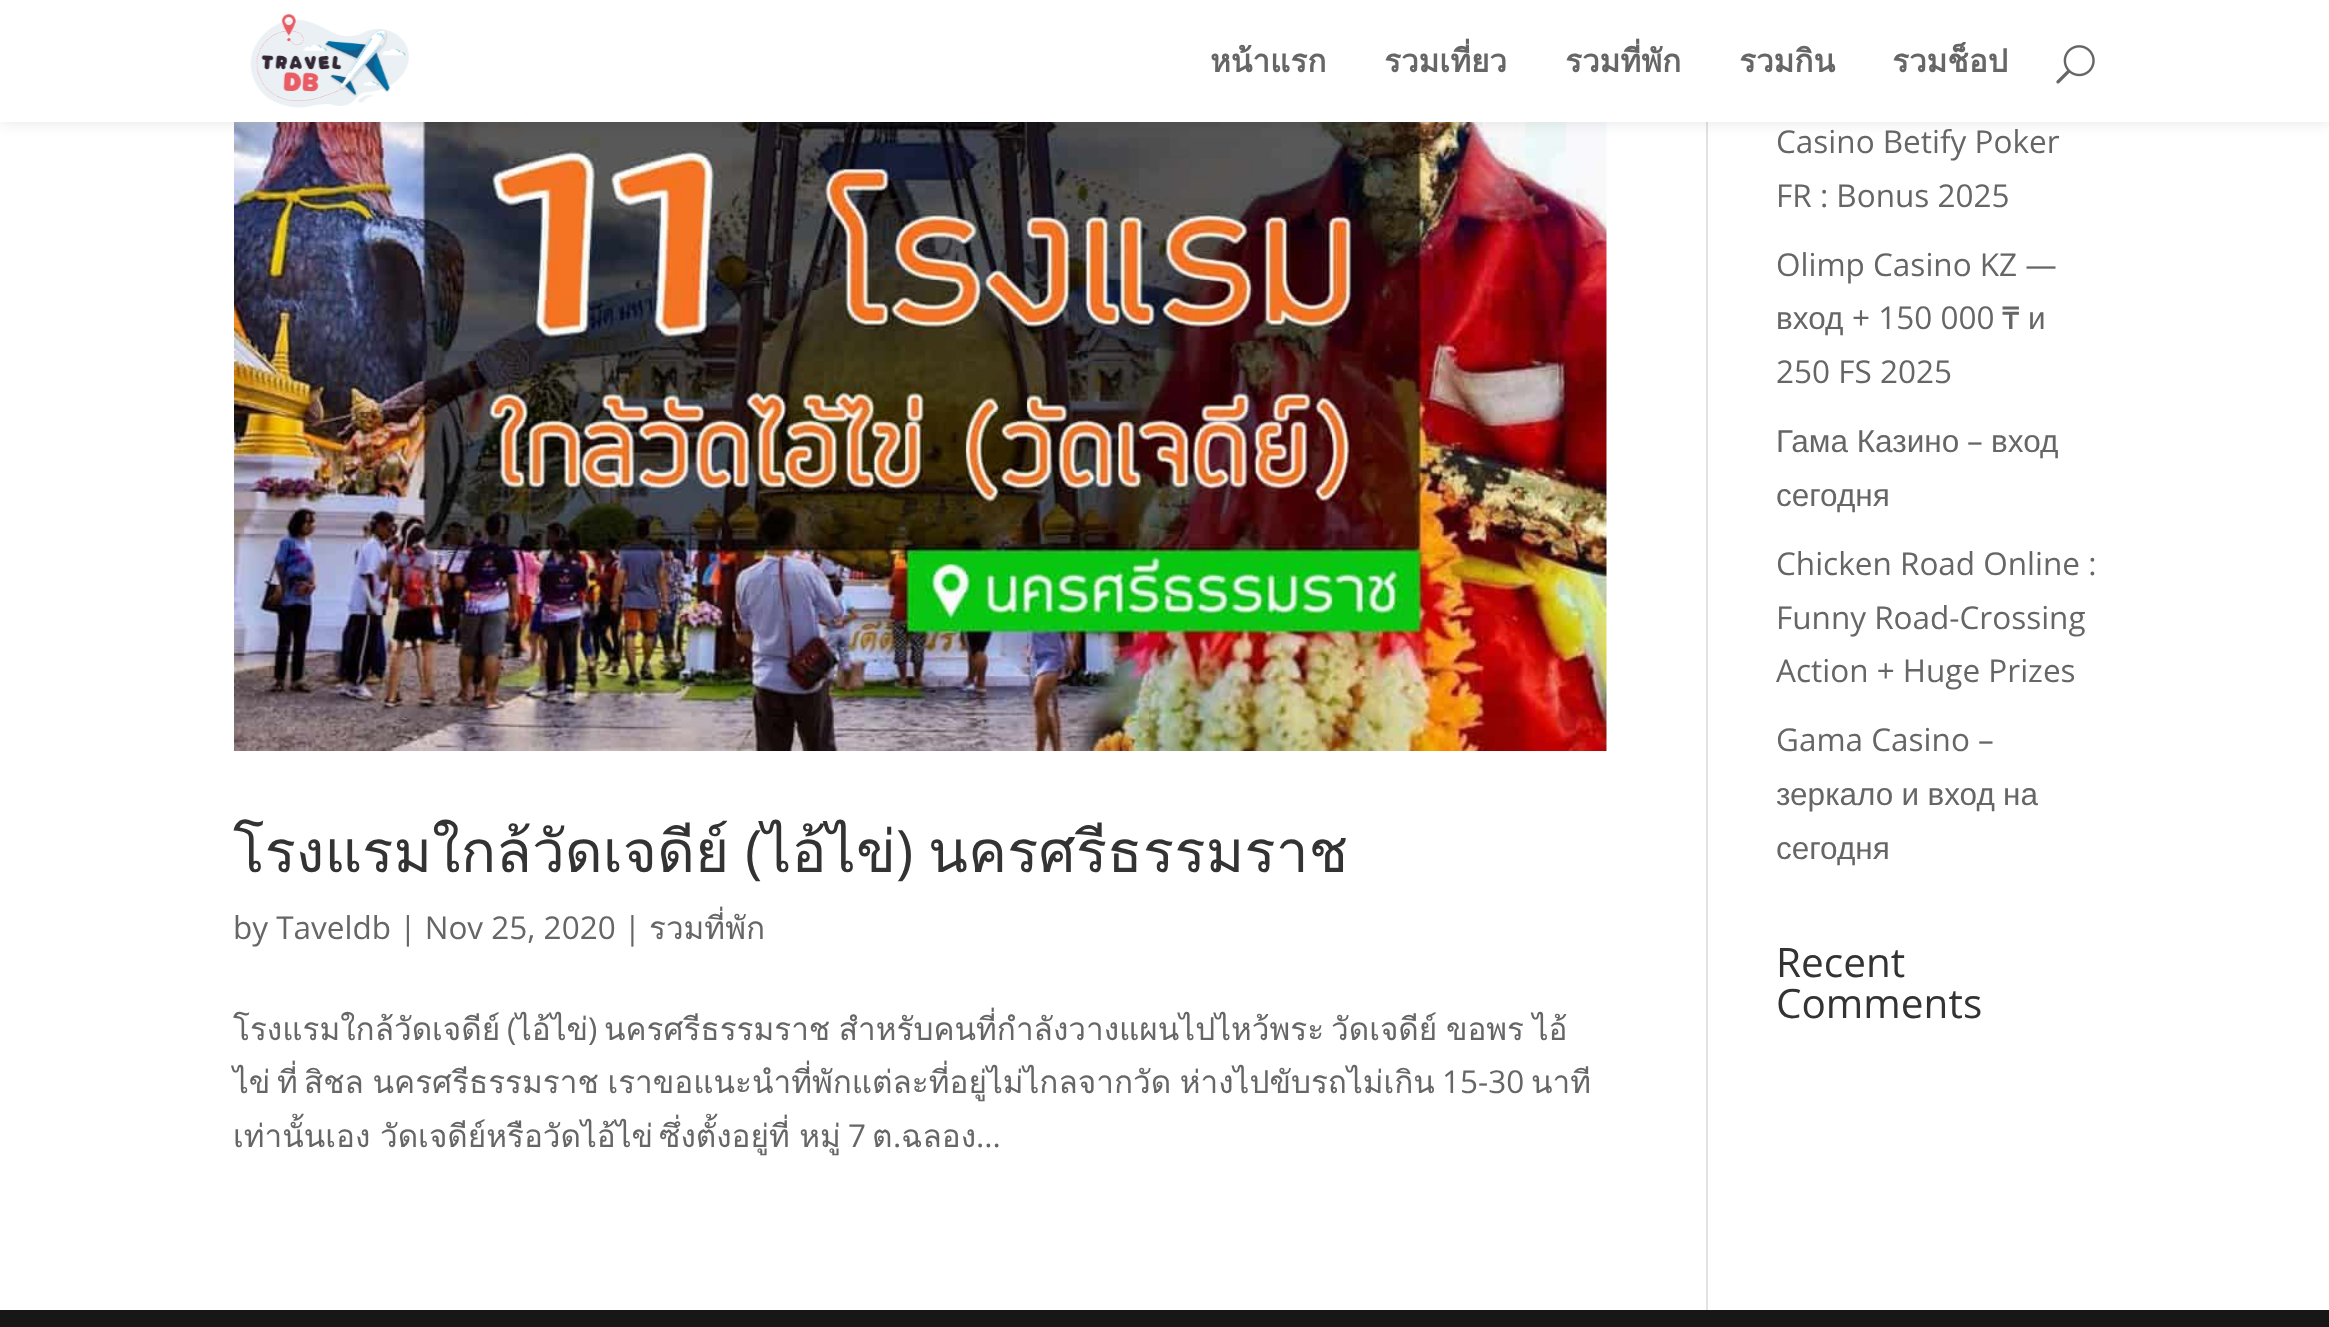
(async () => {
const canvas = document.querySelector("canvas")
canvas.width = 2329
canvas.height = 1327
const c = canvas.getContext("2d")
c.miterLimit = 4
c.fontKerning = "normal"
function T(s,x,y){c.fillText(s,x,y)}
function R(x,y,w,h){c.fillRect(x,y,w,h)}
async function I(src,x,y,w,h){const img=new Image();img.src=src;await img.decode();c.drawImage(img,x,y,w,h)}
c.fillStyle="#fff"
R(0,0,2329,1327)
c.fillStyle="#e2e2e2"
R(1706,122,2,1188)
await I("3.png",234,122,1373,629)
c.fillStyle="#0000001a"
c.filter="blur(8px)"
c.beginPath()
c.rect(0,0,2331,122)
c.fill()
c.filter="none"
c.fillStyle="#fff"
R(0,0,2329,122)
await I("1.png",250,14,159,94)
c.font="bold 31.5px Loma"
c.fillStyle="#666"
T("หน้าแรก",1210,72)
T("รวมเที่ยว",1384,72)
T("รวมที่พัก",1565,72)
T("รวมกิน",1739,72)
T("รวมช็อป",1892,72)
await I("2.png",2056,45,39,39)
c.font="58.5px Loma"
c.fillStyle="#333"
T("โรงแรมใกล้วัดเจดีย์",233,872)
c.font="58.5px Open Sans"
T("(",745,872)
c.font="58.5px Loma"
T("ไอ้ไข่",762,872)
c.font="58.5px Open Sans"
T(")",896,872)
c.font="58.5px Loma"
T("นครศรีธรรมราช",928,872)
c.font="31.5px Open Sans"
c.fillStyle="#666"
T("by Taveldb | Nov 25, 2020 |",233,939)
c.font="31.5px Loma"
T("รวมที่พัก",649,939)
T("โรงแรมใกล้วัดเจดีย์",233,1040)
c.font="31.5px Open Sans"
T("(",507,1040)
c.font="31.5px Loma"
T("ไอ้ไข่",516,1040)
c.font="31.5px Open Sans"
T(")",588,1040)
c.wordSpacing="-2px"
c.font="31.5px Loma"
T("นครศรีธรรมราช สำหรับคนที่กำลังวางแผนไปไหว้พระ",604,1040)
T("วัดเจดีย์ ขอพร ไอ้",1331,1040)
c.wordSpacing="0px"
T("ไข่",233,1093)
T("ที่",277,1093)
c.wordSpacing="-2px"
T("สิชล นครศรีธรรมราช เราขอแนะนำที่พักแต่ละที่อยู่ไม่ไกลจากวัด ห่างไปขับรถไม่เกิน",304,1093)
c.wordSpacing="0px"
c.font="31.5px Open Sans"
T("15-30",1442,1093)
c.font="31.5px Loma"
T("นาที",1531,1093)
c.wordSpacing="-1px"
T("เท่านั้นเอง วัดเจดีย์หรือวัดไอ้ไข่",233,1147)
T("ซึ่งตั้งอยู่ที่ หมู่",659,1147)
c.wordSpacing="0px"
c.font="31.5px Open Sans"
T("7",848,1147)
c.font="31.5px Loma"
T("ต",872,1147)
c.font="31.5px Open Sans"
T(".",893,1147)
c.font="31.5px Loma"
T("ฉลอง",901,1147)
c.font="31.5px Open Sans"
T("...",976,1147)
T("Casino Betify Poker",1776,153)
T("FR : Bonus 2025",1776,207)
T("Olimp Casino KZ —",1776,276)
c.font="31.5px Liberation Sans"
T("вход",1776,329)
c.font="31.5px Open Sans"
T("+ 150 000",1852,329)
c.font="500 31.5px Noto Sans"
T("₸",2002,329)
c.font="31.5px Liberation Sans"
T("и",2028,329)
c.font="31.5px Open Sans"
T("250 FS 2025",1776,383)
c.font="31.5px Liberation Sans"
T("Гама Казино",1776,452)
c.font="31.5px Open Sans"
T("–",1967,452)
c.font="31.5px Liberation Sans"
T("вход",1991,452)
T("сегодня",1776,506)
c.font="31.5px Open Sans"
T("Chicken Road Online :",1776,575)
T("Funny Road-Crossing",1776,629)
T("Action + Huge Prizes",1776,682)
T("Gama Casino –",1776,751)
c.wordSpacing="-0.5px"
c.font="31.5px Liberation Sans"
T("зеркало и вход на",1776,805)
c.wordSpacing="0px"
T("сегодня",1776,859)
c.font="40.5px Open Sans"
c.fillStyle="#333"
T("Recent",1776,977)
T("Comments",1776,1018)
c.fillStyle="#171717"
R(0,1310,2329,17)
})()
